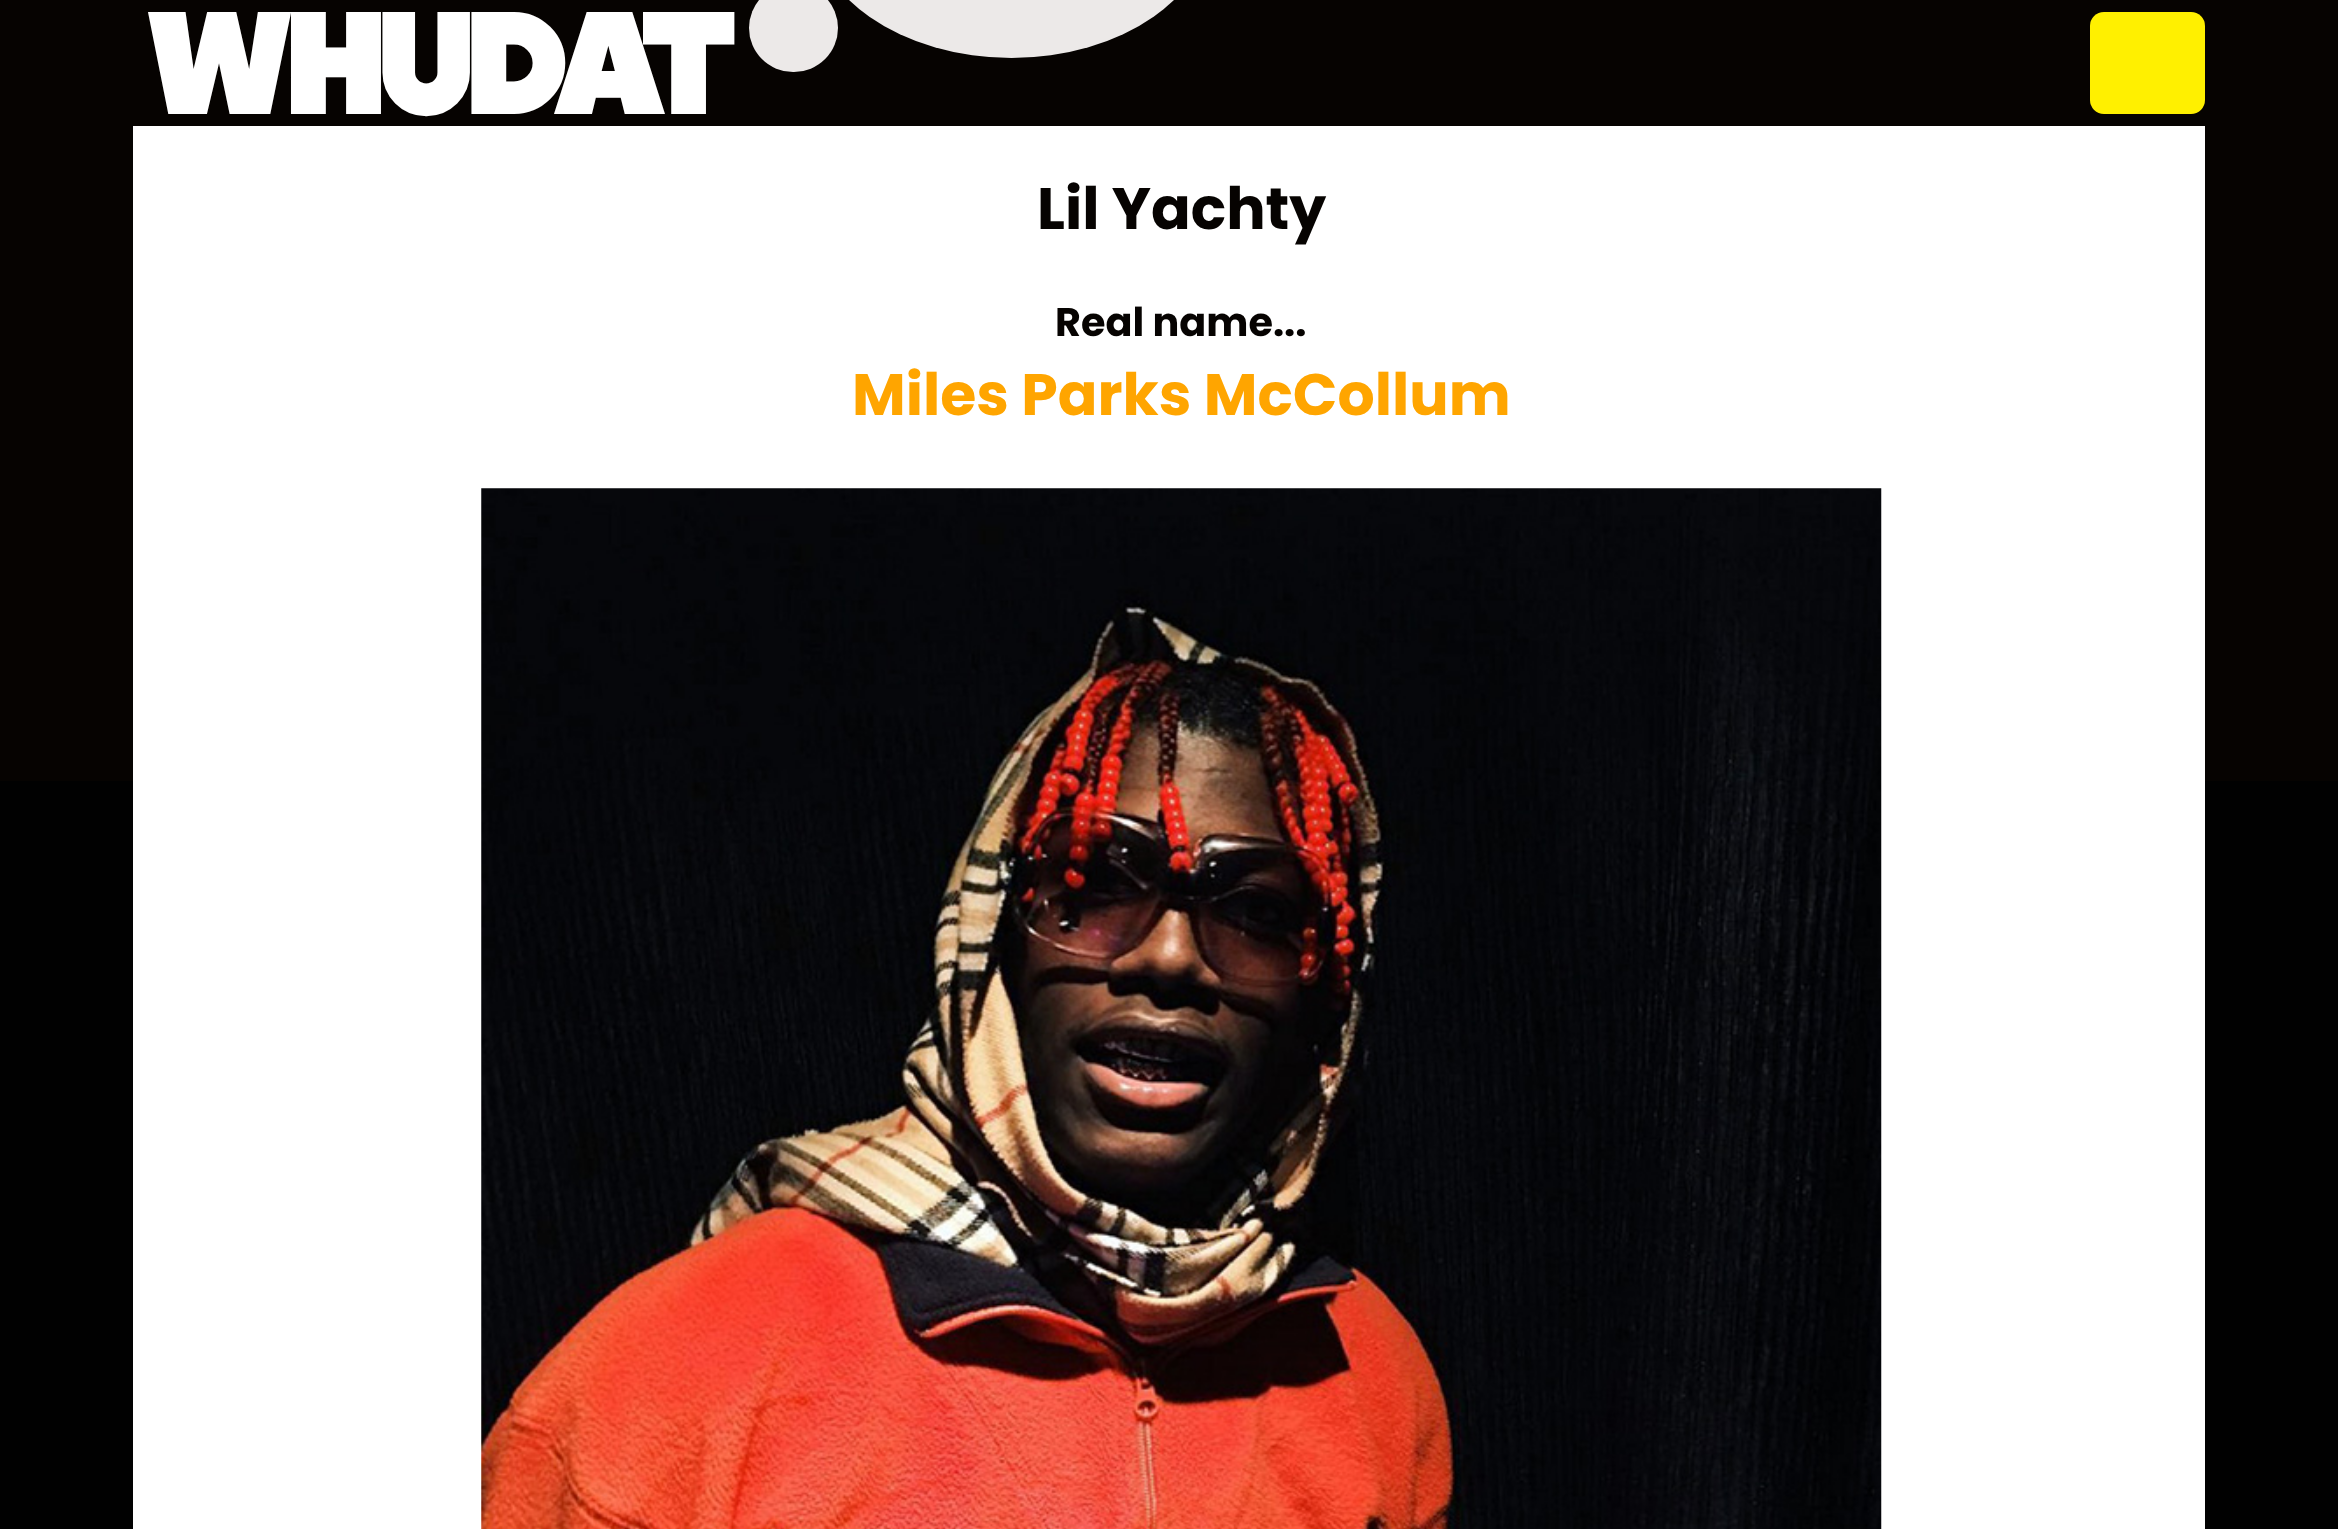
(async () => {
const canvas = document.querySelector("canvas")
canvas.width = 2338
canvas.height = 1529
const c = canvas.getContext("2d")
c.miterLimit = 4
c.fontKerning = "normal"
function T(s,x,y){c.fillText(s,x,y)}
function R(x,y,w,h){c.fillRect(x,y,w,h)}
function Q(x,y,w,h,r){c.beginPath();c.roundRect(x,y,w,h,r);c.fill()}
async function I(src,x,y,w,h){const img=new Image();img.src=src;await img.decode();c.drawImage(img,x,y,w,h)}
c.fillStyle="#010101"
R(0,0,2338,1529)
c.fillStyle="#060301"
R(0,0,2338,781)
c.letterSpacing="-1.5px"
c.font="134.5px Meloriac"
c.fillStyle="#fff"
T("WHUD",148,114)
T("A",554,114)
T("T",643,114)
c.fillStyle="#ece9e8"
Q(749,-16,89,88,44)
c.beginPath()
c.ellipse(1011.5,-83,201,141,0,0,7)
c.fill()
c.fillStyle="#fff000"
Q(2090,12,115,102,14)
c.fillStyle="#fff"
R(133,126,2072,1403)
c.letterSpacing="0px"
c.font="bold 58.5px Poppins"
c.fillStyle="#060301"
T("Lil Yachty",1037,229)
c.font="bold 39.75px Poppins"
T("Real name...",1055,336)
c.font="bold 58.5px Poppins"
c.fillStyle="#ffa500"
T("Miles Parks McCollum",852,415)
await I("1.png",481,488,1401,1041)
})()
